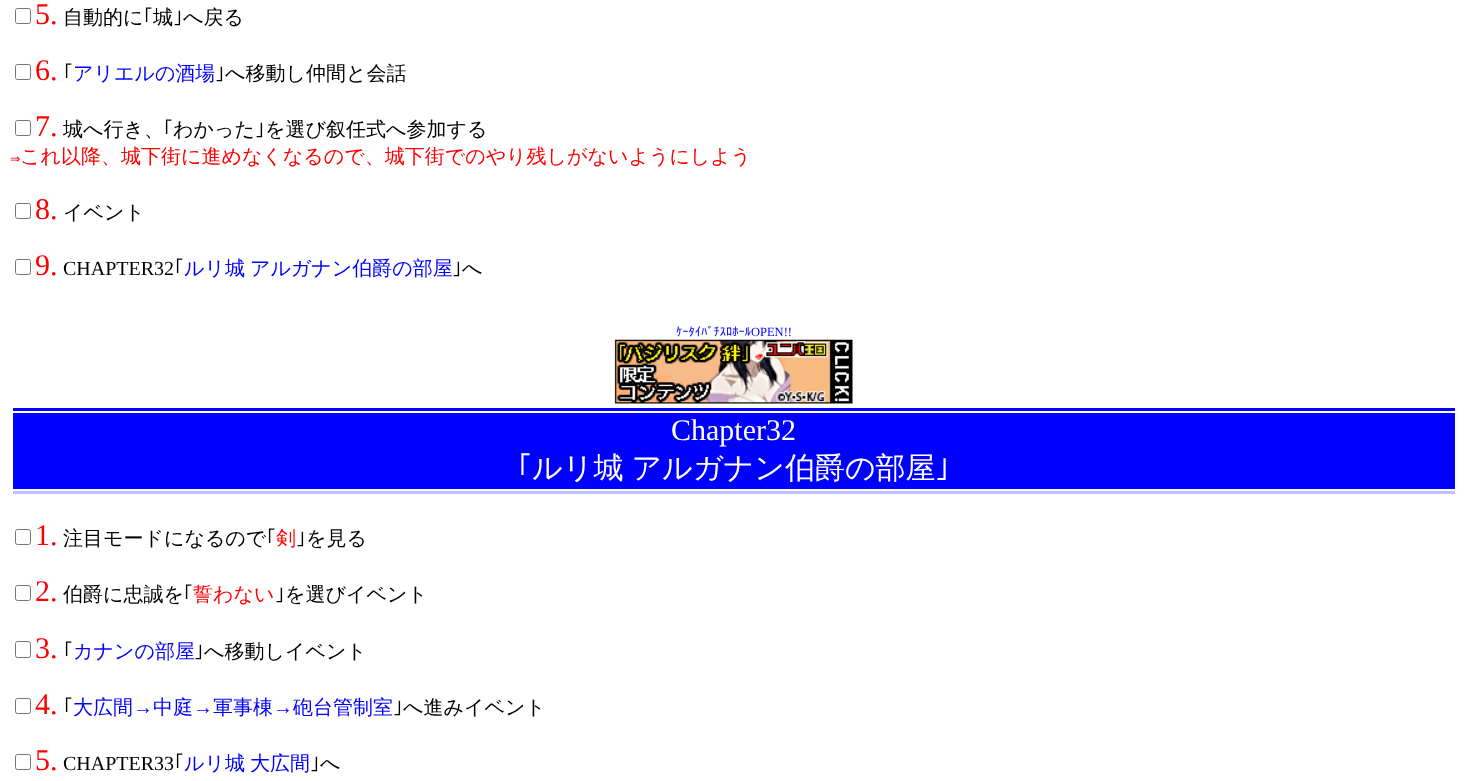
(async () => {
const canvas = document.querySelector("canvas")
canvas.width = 1467
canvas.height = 781
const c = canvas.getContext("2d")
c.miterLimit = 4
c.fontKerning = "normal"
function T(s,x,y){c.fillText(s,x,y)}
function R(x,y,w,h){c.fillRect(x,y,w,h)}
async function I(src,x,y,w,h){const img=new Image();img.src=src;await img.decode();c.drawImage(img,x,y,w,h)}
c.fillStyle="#fff"
R(0,0,1467,781)
c.beginPath()
c.roundRect(15.5,8.5,15,15,2)
c.strokeStyle="#767676"
c.stroke()
c.font="30px Liberation Serif"
c.fillStyle="#f00"
T("5.",35,24)
c.font="500 20px WenQuanYi Zen Hei"
c.fillStyle="#000"
T("自動的に",63,24)
c.font="20px IPAGothic"
T("｢",143,24)
c.font="500 20px WenQuanYi Zen Hei"
T("城",153,24)
c.font="20px IPAGothic"
T("｣",173,24)
c.font="500 20px WenQuanYi Zen Hei"
T("へ戻る",183,24)
c.beginPath()
c.roundRect(15.5,64.5,15,15,2)
c.stroke()
c.font="30px Liberation Serif"
c.fillStyle="#f00"
T("6.",35,80)
c.font="20px IPAGothic"
c.fillStyle="#000"
T("｢",63,80)
c.font="500 20px WenQuanYi Zen Hei"
c.fillStyle="#00f"
T("アリエルの酒場",73,80)
c.font="20px IPAGothic"
c.fillStyle="#000"
T("｣",215,80)
c.font="500 20px WenQuanYi Zen Hei"
T("へ移動し仲間と会話",225,80)
c.beginPath()
c.roundRect(15.5,120.5,15,15,2)
c.stroke()
c.font="30px Liberation Serif"
c.fillStyle="#f00"
T("7.",35,136)
c.font="500 20px WenQuanYi Zen Hei"
c.fillStyle="#000"
T("城へ行き、",63,136)
c.font="20px IPAGothic"
T("｢",163,136)
c.font="500 20px WenQuanYi Zen Hei"
T("わかった",173,136)
c.font="20px IPAGothic"
T("｣",255,136)
c.font="500 20px WenQuanYi Zen Hei"
T("を選び叙任式へ参加する",265,136)
c.font="12.5px DejaVu Sans"
c.fillStyle="#f00"
T("⇒",10,163)
c.font="500 20px WenQuanYi Zen Hei"
T("これ以降、城下街に進めなくなるので、城下街でのやり残しがないようにしよう",20,163)
c.beginPath()
c.roundRect(15.5,203.5,15,15,2)
c.stroke()
c.font="30px Liberation Serif"
T("8.",35,219)
c.font="500 20px WenQuanYi Zen Hei"
c.fillStyle="#000"
T("イベント",63,219)
c.beginPath()
c.roundRect(15.5,259.5,15,15,2)
c.stroke()
c.font="30px Liberation Serif"
c.fillStyle="#f00"
T("9.",35,275)
c.font="20px Liberation Serif"
c.fillStyle="#000"
T("CHAPTER32",63,275)
c.font="20px IPAGothic"
T("｢",174,275)
c.wordSpacing="-1px"
c.font="500 20px WenQuanYi Zen Hei"
c.fillStyle="#00f"
T("ルリ城 アルガナン伯爵の部屋",184,275)
c.wordSpacing="0px"
c.font="20px IPAGothic"
c.fillStyle="#000"
T("｣",452,275)
c.font="500 20px WenQuanYi Zen Hei"
T("へ",462,275)
c.font="12.5px IPAGothic"
c.fillStyle="#00f"
T("ｹｰﾀｲﾊﾟﾁｽﾛﾎｰﾙ",676,336)
c.font="12.5px Liberation Serif"
T("OPEN!!",751,336)
await I("1.png",614,339,239,65)
R(13,408,1442,3)
R(13,413,1442,76)
c.font="30px Liberation Serif"
c.fillStyle="#fff"
T("Chapter32",671,440)
c.font="30px IPAGothic"
T("｢",517,478)
c.wordSpacing="-1px"
c.font="500 30px WenQuanYi Zen Hei"
T("ルリ城 アルガナン伯爵の部屋",532,478)
c.wordSpacing="0px"
c.font="30px IPAGothic"
T("｣",935,478)
c.fillStyle="#c1c1ff"
R(13,491,1442,3)
c.beginPath()
c.roundRect(15.5,529.5,15,15,2)
c.stroke()
c.font="30px Liberation Serif"
c.fillStyle="#f00"
T("1.",35,545)
c.font="500 20px WenQuanYi Zen Hei"
c.fillStyle="#000"
T("注目モードになるので",63,545)
c.font="20px IPAGothic"
T("｢",266,545)
c.font="500 20px WenQuanYi Zen Hei"
c.fillStyle="#f00"
T("剣",276,545)
c.font="20px IPAGothic"
c.fillStyle="#000"
T("｣",296,545)
c.font="500 20px WenQuanYi Zen Hei"
T("を見る",306,545)
c.beginPath()
c.roundRect(15.5,585.5,15,15,2)
c.stroke()
c.font="30px Liberation Serif"
c.fillStyle="#f00"
T("2.",35,601)
c.font="500 20px WenQuanYi Zen Hei"
c.fillStyle="#000"
T("伯爵に忠誠を",63,601)
c.font="20px IPAGothic"
T("｢",183,601)
c.font="500 20px WenQuanYi Zen Hei"
c.fillStyle="#f00"
T("誓わない",193,601)
c.font="20px IPAGothic"
c.fillStyle="#000"
T("｣",275,601)
c.font="500 20px WenQuanYi Zen Hei"
T("を選びイベント",285,601)
c.beginPath()
c.roundRect(15.5,641.5,15,16,2)
c.stroke()
c.font="30px Liberation Serif"
c.fillStyle="#f00"
T("3.",35,658)
c.font="20px IPAGothic"
c.fillStyle="#000"
T("｢",63,658)
c.font="500 20px WenQuanYi Zen Hei"
c.fillStyle="#00f"
T("カナンの部屋",73,658)
c.font="20px IPAGothic"
c.fillStyle="#000"
T("｣",194,658)
c.font="500 20px WenQuanYi Zen Hei"
T("へ移動しイベント",204,658)
c.beginPath()
c.roundRect(15.5,698.5,15,15,2)
c.stroke()
c.font="30px Liberation Serif"
c.fillStyle="#f00"
T("4.",35,714)
c.font="20px IPAGothic"
c.fillStyle="#000"
T("｢",63,714)
c.font="500 20px WenQuanYi Zen Hei"
c.fillStyle="#00f"
T("大広間",73,714)
c.font="20px Liberation Serif"
T("→",133,714)
c.font="500 20px WenQuanYi Zen Hei"
T("中庭",153,714)
c.font="20px Liberation Serif"
T("→",193,714)
c.font="500 20px WenQuanYi Zen Hei"
T("軍事棟",213,714)
c.font="20px Liberation Serif"
T("→",273,714)
c.font="500 20px WenQuanYi Zen Hei"
T("砲台管制室",293,714)
c.font="20px IPAGothic"
c.fillStyle="#000"
T("｣",393,714)
c.font="500 20px WenQuanYi Zen Hei"
T("へ進みイベント",403,714)
c.beginPath()
c.roundRect(15.5,754.5,15,15,2)
c.stroke()
c.font="30px Liberation Serif"
c.fillStyle="#f00"
T("5.",35,770)
c.font="20px Liberation Serif"
c.fillStyle="#000"
T("CHAPTER33",63,770)
c.font="20px IPAGothic"
T("｢",174,770)
c.wordSpacing="-1px"
c.font="500 20px WenQuanYi Zen Hei"
c.fillStyle="#00f"
T("ルリ城 大広間",184,770)
c.wordSpacing="0px"
c.font="20px IPAGothic"
c.fillStyle="#000"
T("｣",310,770)
c.font="500 20px WenQuanYi Zen Hei"
T("へ",320,770)
})()
